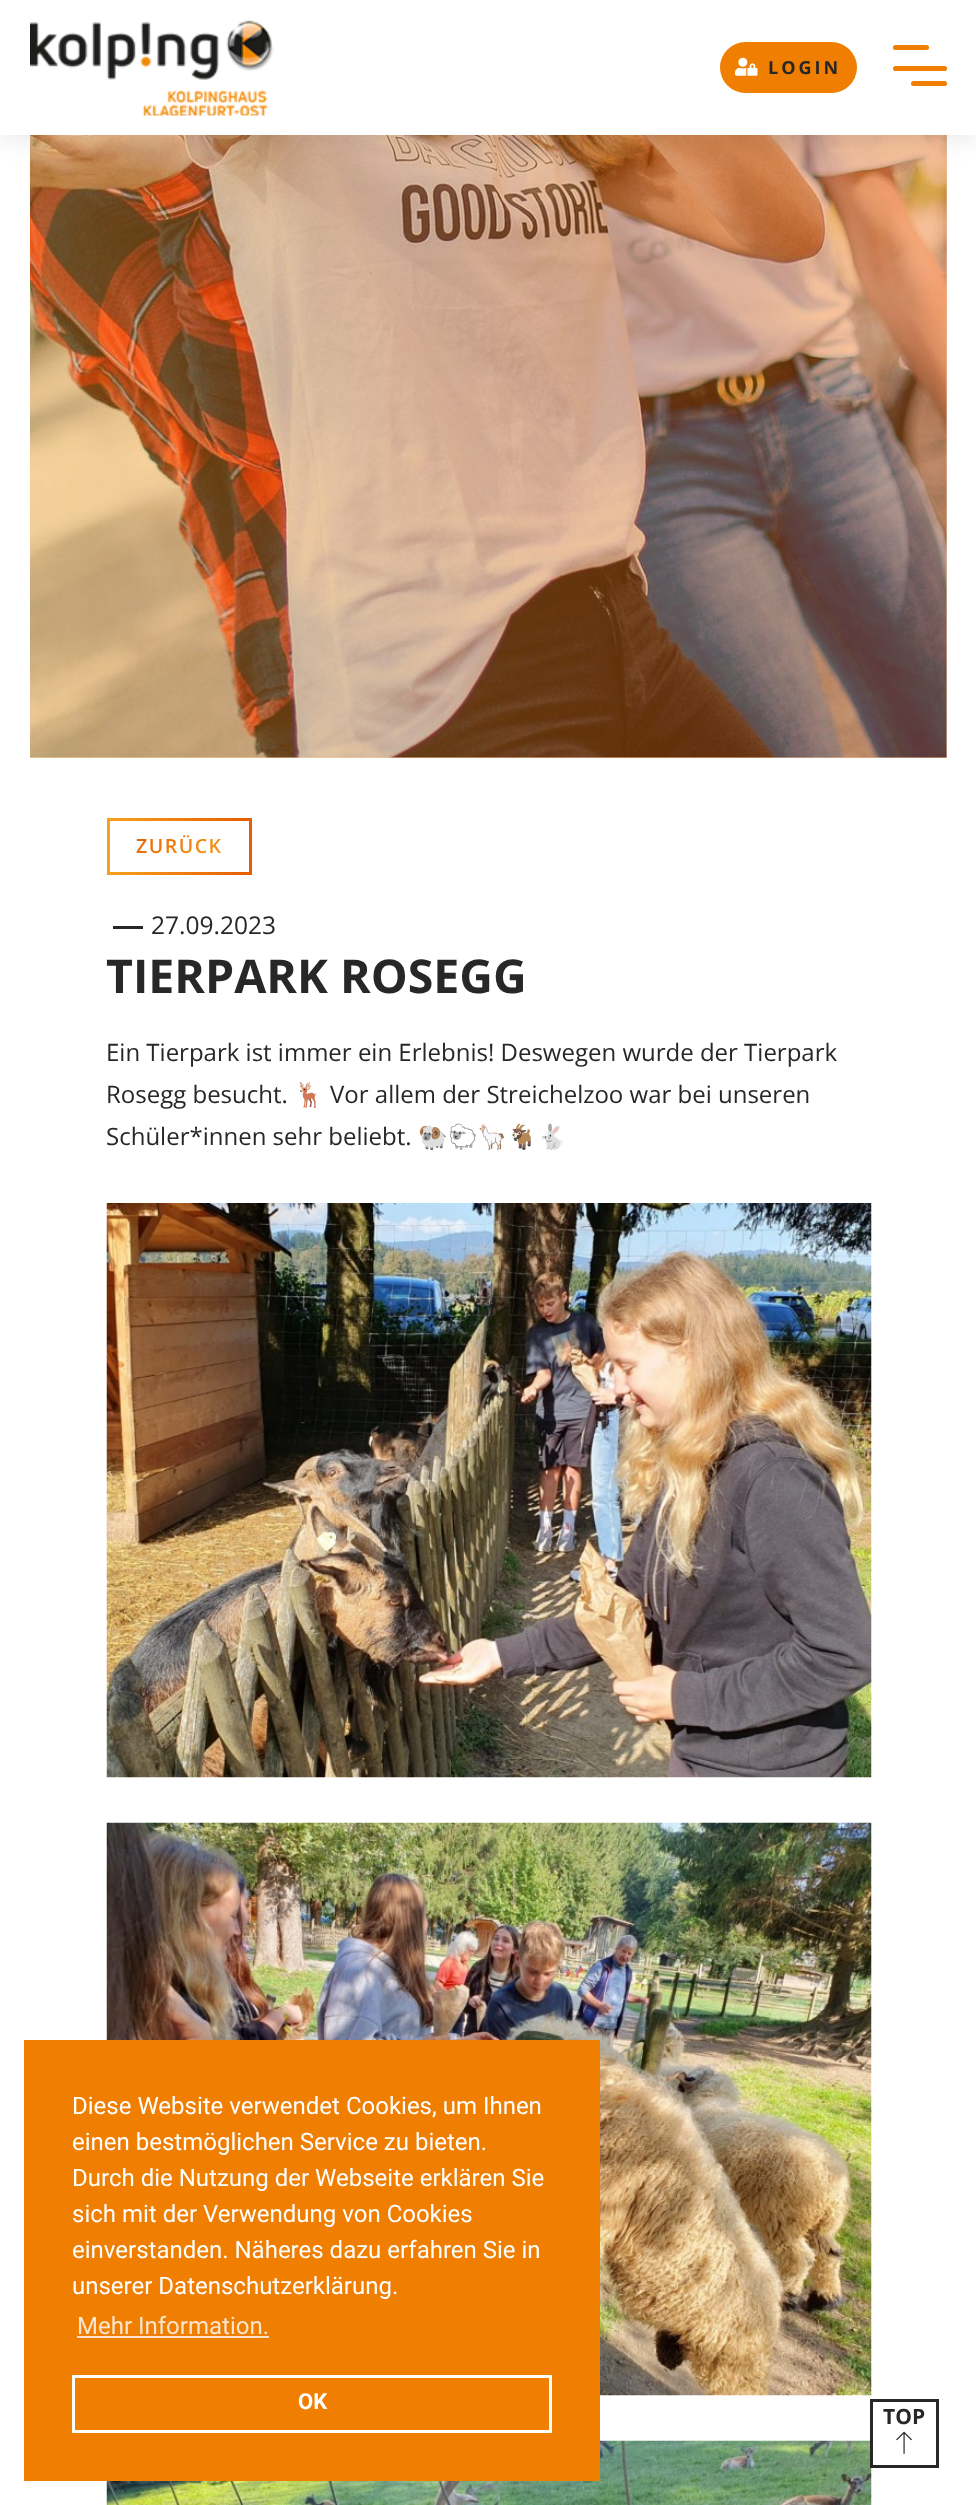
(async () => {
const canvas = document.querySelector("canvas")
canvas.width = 976
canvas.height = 2505
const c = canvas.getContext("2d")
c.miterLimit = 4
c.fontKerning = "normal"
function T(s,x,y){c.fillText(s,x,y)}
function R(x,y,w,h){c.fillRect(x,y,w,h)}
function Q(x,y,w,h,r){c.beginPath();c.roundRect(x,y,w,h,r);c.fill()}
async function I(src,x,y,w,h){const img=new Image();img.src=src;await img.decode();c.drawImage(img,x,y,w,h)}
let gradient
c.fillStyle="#fff"
R(0,0,976,2505)
await I("3.png",30,135,917,623)
gradient = c.createLinearGradient(30,136,947,136)
gradient.addColorStop(0,"#f6a01e66")
gradient.addColorStop(1,"#e75d0066")
c.fillStyle = gradient
R(30,135,917,623)
c.fillStyle="#0000001a"
c.filter="blur(13.5px)"
c.beginPath()
c.rect(-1,-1,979,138)
c.fill()
c.filter="none"
c.fillStyle="#fff"
R(0,0,976,135)
await I("1.png",30,20,244,96)
c.fillStyle="#f07e00"
Q(720,42,137,51,25.5)
await I("2.png",735,57,23,19)
c.letterSpacing="3px"
c.font="bold 18px Open Sans"
c.fillStyle="#272727"
T("LOGIN",768,74)
c.fillStyle="#f07e00"
Q(893,66,54,5,2.5)
Q(893,45,36,5,2.5)
Q(911,81,36,5,2.5)
gradient = c.createLinearGradient(110,873,249,873)
gradient.addColorStop(0,"#f6a01e")
gradient.addColorStop(1,"#e75d00")
c.fillStyle = gradient
R(110,872,139,3)
gradient = c.createLinearGradient(110,819,249,819)
gradient.addColorStop(0,"#f6a01e")
gradient.addColorStop(1,"#e75d00")
c.fillStyle = gradient
R(110,818,139,3)
c.fillStyle="#e75d00"
R(249,818,3,57)
c.fillStyle="#f6a01e"
R(107,818,3,57)
c.letterSpacing="1.5px"
c.font="600 19.5px Open Sans"
gradient = c.createLinearGradient(196,874,162,816)
gradient.addColorStop(0,"#f6a01e")
gradient.addColorStop(1,"#e75d00")
c.fillStyle = gradient
T("ZURÜCK",136,853)
c.fillStyle="#272727"
R(113,926,30,3)
c.letterSpacing="0px"
c.font="24.5px Open Sans"
T("27.09.2023",151,934)
c.font="bold 46.5px Open Sans"
T("TIERPARK ROSEGG",106,993)
c.font="24px Open Sans"
T("Ein Tierpark ist immer ein Erlebnis! Deswegen wurde der Tierpark",106,1061)
T("Rosegg besucht.",106,1103)
c.font="24px Noto Color Emoji"
T("🦌",294,1103)
c.font="24px Open Sans"
T("Vor allem der Streichelzoo war bei unseren",330,1103)
T("Schüler*innen sehr beliebt.",106,1145)
c.font="24px Noto Color Emoji"
T("🐏🐑🦙🐐🐇",418,1145)
await I("4.png",106,1203,766,575)
await I("5.png",106,1822,766,574)
await I("6.png",106,2440,766,65)
c.fillStyle="#f07e00"
R(24,2040,576,441)
c.font="24px Roboto"
c.fillStyle="#fff"
T("Diese Website verwendet Cookies, um Ihnen",72,2114)
T("einen bestmöglichen Service zu bieten.",72,2150)
T("Durch die Nutzung der Webseite erklären Sie",72,2186)
T("sich mit der Verwendung von Cookies",72,2222)
T("einverstanden. Näheres dazu erfahren Sie in",72,2258)
T("unserer Datenschutzerklärung.",72,2294)
c.fillStyle="#fce5cc"
T("Mehr Information.",77,2334)
R(77,2336,192,2)
c.strokeStyle="#fff"
c.lineWidth=3
c.strokeRect(73.5,2376.5,477,55)
c.font="bold 22px Roboto"
c.fillStyle="#fff"
T("OK",298,2409)
c.strokeStyle="#272727"
c.strokeRect(871.5,2400.5,66,66)
c.font="bold 21px Open Sans"
c.fillStyle="#272727"
T("TOP",883,2424)
await I("7.png",896,2431,16,23)
})()
